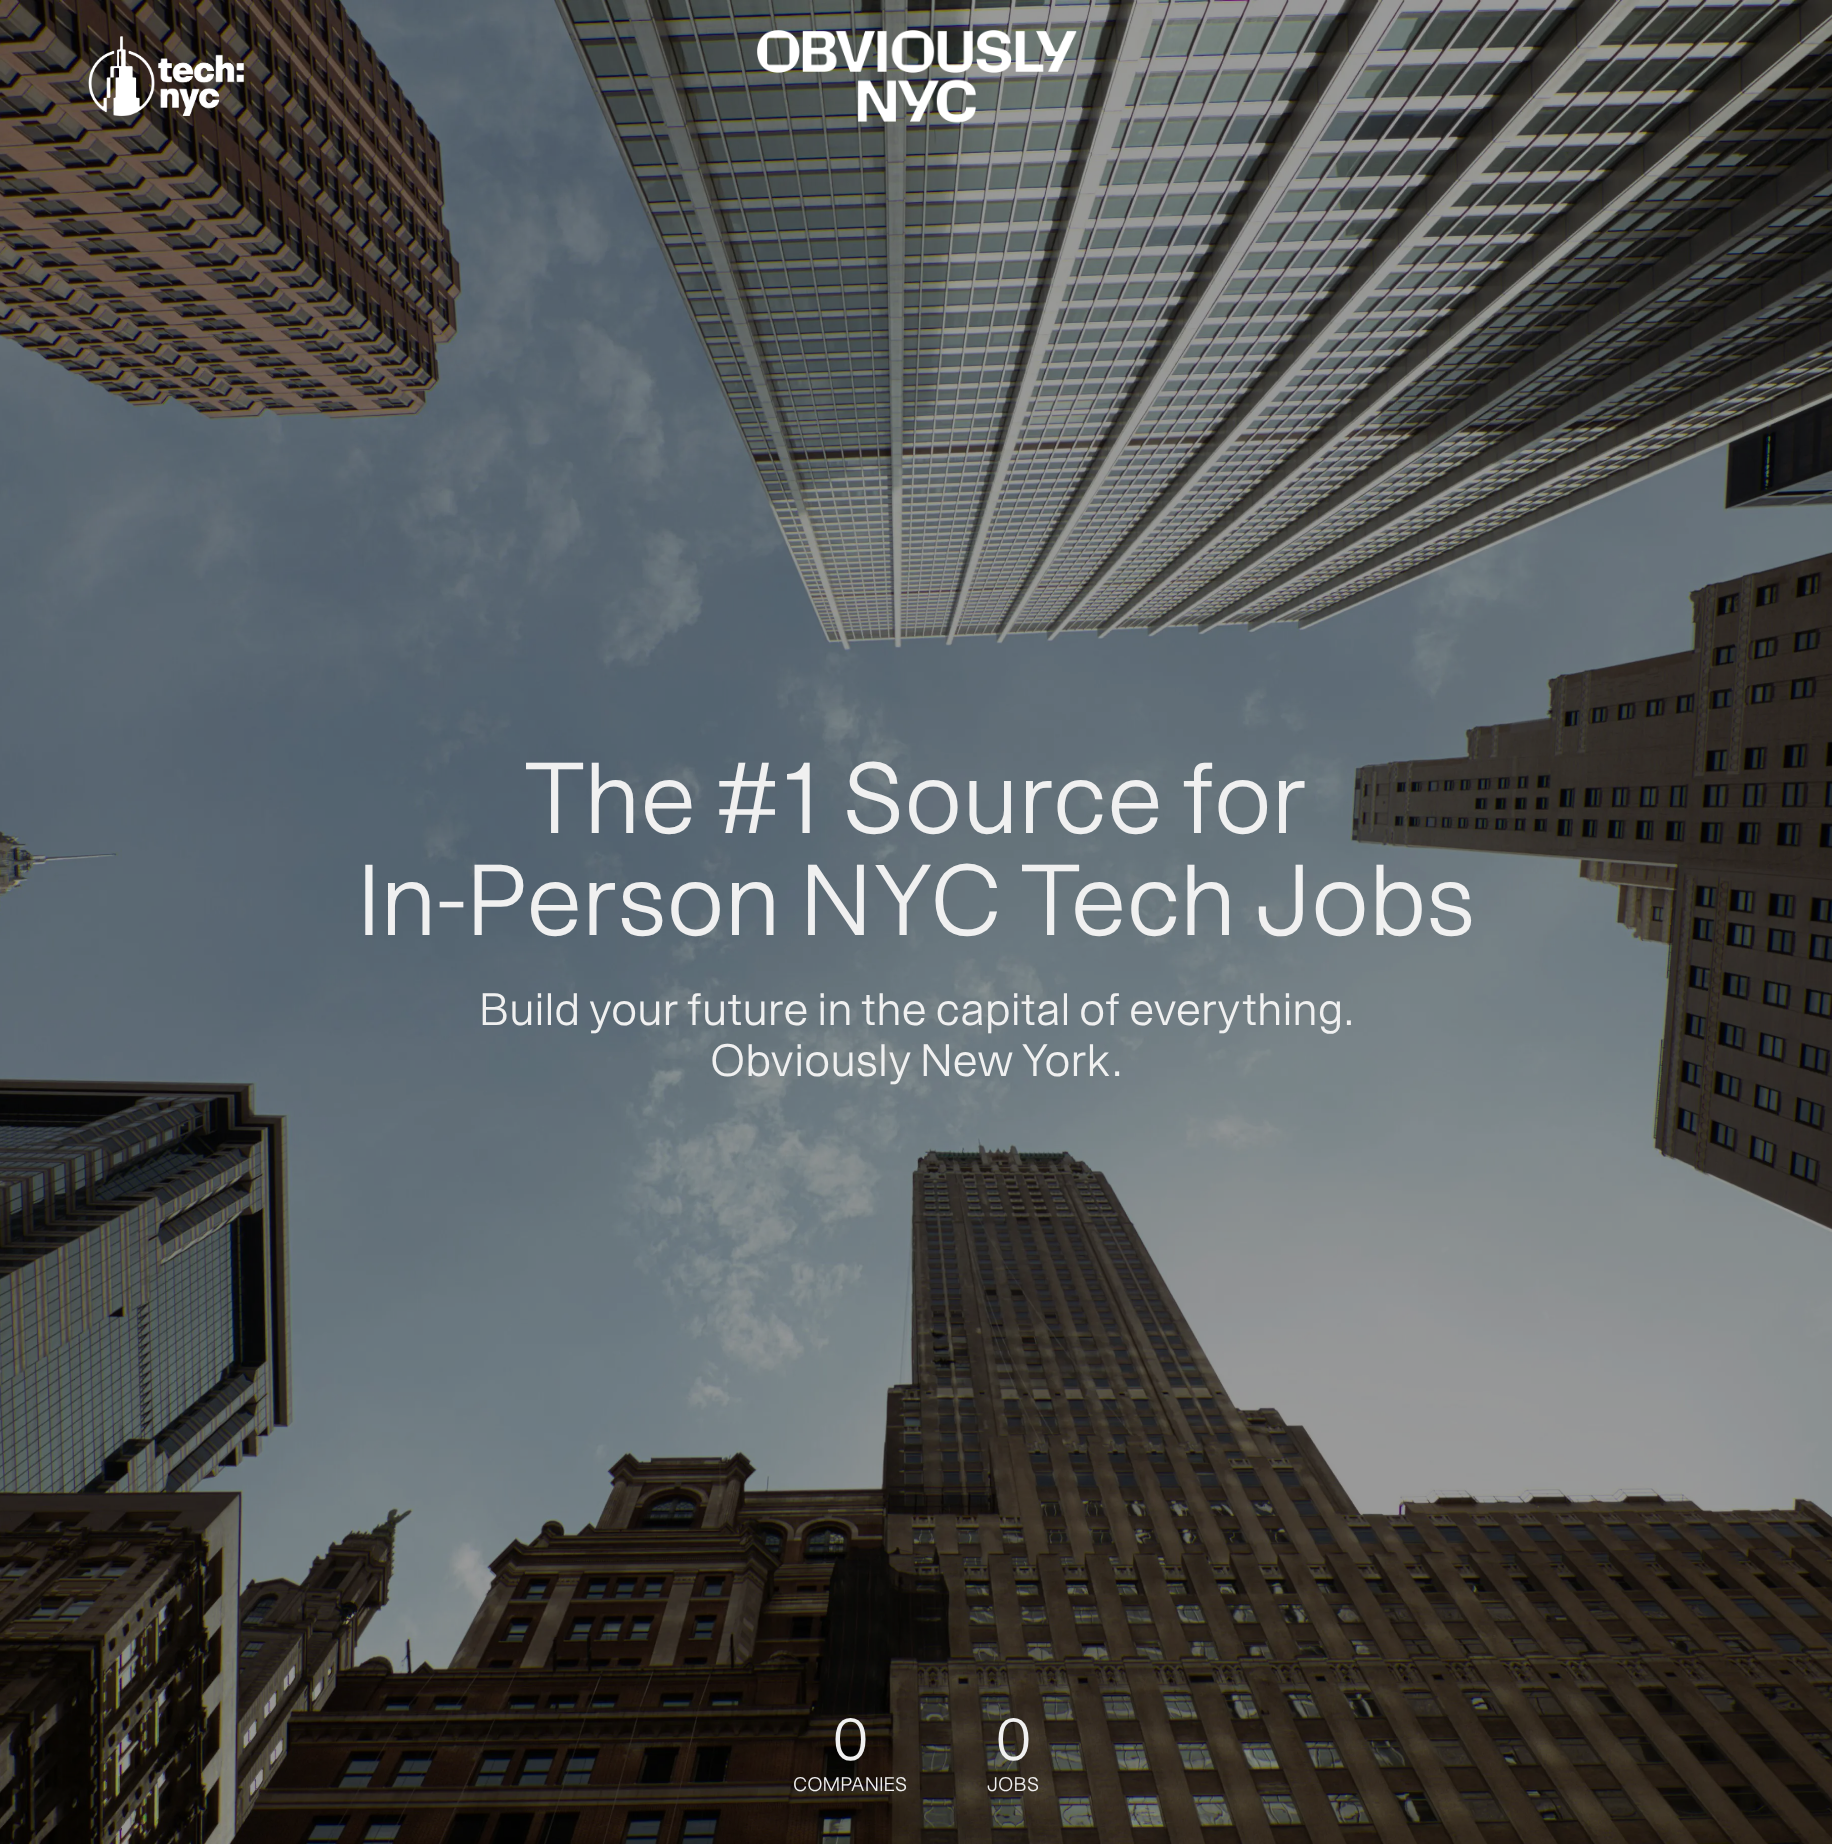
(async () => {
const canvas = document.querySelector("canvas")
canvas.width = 1832
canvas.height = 1844
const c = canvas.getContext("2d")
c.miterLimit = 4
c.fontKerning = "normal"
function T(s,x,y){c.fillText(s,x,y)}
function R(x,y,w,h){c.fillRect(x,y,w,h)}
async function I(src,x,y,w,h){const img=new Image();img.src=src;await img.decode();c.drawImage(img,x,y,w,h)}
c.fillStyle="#fff"
R(0,0,1832,1844)
await I("3.png",0,0,1832,1844)
await I("1.png",88,36,157,80)
await I("2.png",757,30,320,93)
c.font="300 101.75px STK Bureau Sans"
c.fillStyle="#f0f0f0"
T("The #1 Source for",525,833)
T("In-Person NYC Tech Jobs",357,935)
c.font="300 46px STK Bureau Sans"
T("Build your future in the capital of everything.",479,1025)
T("Obviously New York.",710,1076)
c.font="300 60px STK Bureau Sans"
T("0",832,1760)
c.font="300 20px STK Bureau Sans"
T("COMPANIES",793,1791)
c.font="300 60px STK Bureau Sans"
T("0",995,1760)
c.font="300 20px STK Bureau Sans"
T("JOBS",987,1791)
})()
